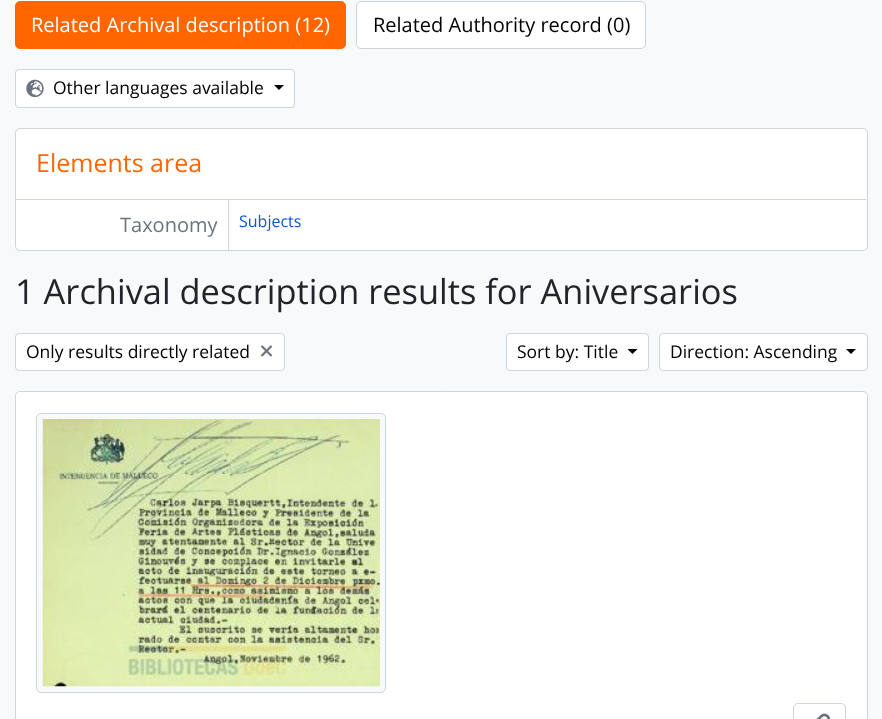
(async () => {
const canvas = document.querySelector("canvas")
canvas.width = 882
canvas.height = 719
const c = canvas.getContext("2d")
c.miterLimit = 4
c.fontKerning = "normal"
function T(s,x,y){c.fillText(s,x,y)}
function R(x,y,w,h){c.fillRect(x,y,w,h)}
async function I(src,x,y,w,h){const img=new Image();img.src=src;await img.decode();c.drawImage(img,x,y,w,h)}
let path
c.fillStyle="#f8f9fa"
R(0,0,882,719)
c.fillStyle="#f60"
c.beginPath()
c.roundRect(15.5,1.5,330,47,4.5)
c.fill()
c.strokeStyle="#f60"
c.stroke()
c.font="20px Open Sans"
c.fillStyle="#fff"
T("Related Archival description (12)",31,32)
c.beginPath()
c.roundRect(356.5,1.5,289,47,4.5)
c.fill()
c.strokeStyle="#ced4da"
c.stroke()
c.fillStyle="#000"
T("Related Authority record (0)",373,32)
c.fillStyle="#fff"
c.beginPath()
c.roundRect(15.5,69.5,279,38,3.5)
c.fill()
c.stroke()
await I("1.png",26,79,18,19)
c.font="17.5px Open Sans"
c.fillStyle="#000"
T("Other languages available",53,94)
path = new Path2D("M274 85h10l-5 5z")
c.fill(path)
c.fillStyle="#fff"
c.beginPath()
c.roundRect(15.5,128.5,852,122,4.5)
c.fill()
c.stroke()
c.fillStyle="#ced4da"
R(16,199,850,1)
c.font="25px Open Sans"
c.fillStyle="#f60"
T("Elements area",36,172)
c.fillStyle="#ced4da"
R(228,200,1,50)
c.font="20px Open Sans"
c.fillStyle="#6c757d"
T("Taxonomy",120,232)
c.font="16px Open Sans"
c.fillStyle="#0a58ca"
T("Subjects",239,227)
c.font="34.4px Open Sans"
c.fillStyle="#212529"
T("1 Archival description results for Aniversarios",15,304)
c.fillStyle="#fff"
c.beginPath()
c.roundRect(15.5,333.5,269,37,3.5)
c.fill()
c.stroke()
c.font="17.5px Open Sans"
c.fillStyle="#000"
T("Only results directly related",26,358)
await I("2.png",261,345,11,12)
c.fillStyle="#fff"
c.beginPath()
c.roundRect(506.5,333.5,142,37,3.5)
c.fill()
c.stroke()
c.fillStyle="#000"
T("Sort by: Title",517,358)
path = new Path2D("M627.5 349h10l-5 5z")
c.fill(path)
c.fillStyle="#fff"
c.beginPath()
c.roundRect(659.5,333.5,208,37,3.5)
c.fill()
c.stroke()
c.fillStyle="#000"
T("Direction: Ascending",670,358)
path = new Path2D("M846 349h10l-5 5z")
c.fill(path)
c.fillStyle="#fff"
c.beginPath()
c.roundRect(15.5,391.5,852,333,4.5)
c.fill()
c.stroke()
c.fillStyle="#f8f9fa"
c.beginPath()
c.roundRect(36.5,413.5,349,279,4.5)
c.fill()
c.stroke()
await I("3.png",42,419,338,268)
c.beginPath()
c.roundRect(793.5,703.5,52,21,4.5)
c.stroke()
await I("4.png",816,713,15,6)
})()
